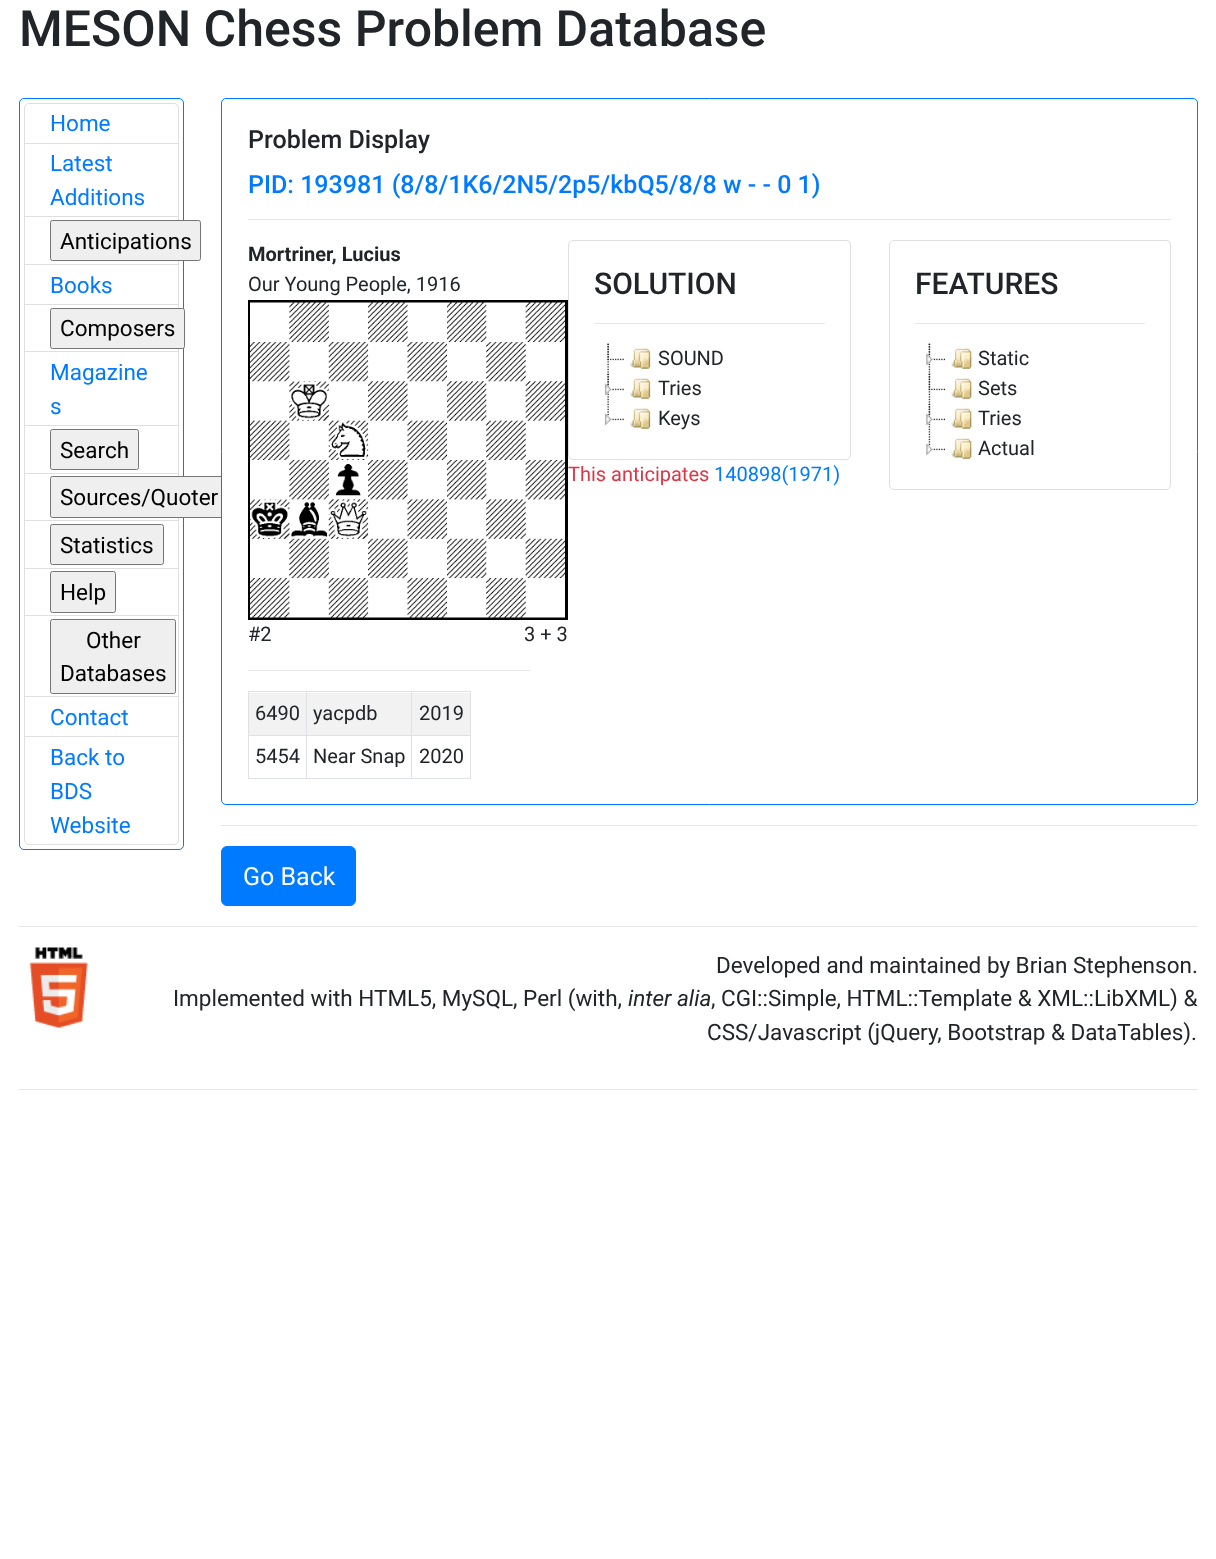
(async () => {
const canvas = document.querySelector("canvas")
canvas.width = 1216
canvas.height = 1559
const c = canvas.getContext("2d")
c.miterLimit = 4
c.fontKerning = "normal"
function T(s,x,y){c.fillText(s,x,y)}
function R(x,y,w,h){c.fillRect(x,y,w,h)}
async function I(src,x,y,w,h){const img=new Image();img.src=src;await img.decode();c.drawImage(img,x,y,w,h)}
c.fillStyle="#fff"
R(0,0,1216,1559)
c.font="500 50px Roboto"
c.fillStyle="#212529"
T("MESON Chess Problem Database",19,46)
c.beginPath()
c.roundRect(19.5,98.5,164,751,4.5)
c.strokeStyle="#007bff"
c.stroke()
c.beginPath()
c.roundRect(24.5,103.5,154,40,[4.5,4.5,0,0])
c.strokeStyle="#dfdfdf"
c.stroke()
c.font="22.5px Roboto"
c.fillStyle="#007bff"
T("Home",50,131)
c.strokeRect(24.5,143.5,154,74)
T("Latest",50,171)
T("Additions",50,205)
c.fillStyle="#fff"
R(25,217,153,1)
c.strokeRect(24.5,216.5,154,48)
c.fillStyle="#efefef"
c.beginPath()
c.roundRect(50.5,220.5,150,40,2)
c.fill()
c.strokeStyle="#767676"
c.stroke()
c.fillStyle="#000"
T("Anticipations",60,249)
c.strokeStyle="#dfdfdf"
c.strokeRect(24.5,264.5,154,40)
c.fillStyle="#007bff"
T("Books",50,293)
c.strokeRect(24.5,304.5,154,48)
c.fillStyle="#efefef"
c.beginPath()
c.roundRect(50.5,308.5,134,40,2)
c.fill()
c.strokeStyle="#767676"
c.stroke()
c.fillStyle="#000"
T("Composers",60,336)
c.fillStyle="#fff"
R(25,352,153,1)
c.strokeStyle="#dfdfdf"
c.strokeRect(24.5,351.5,154,74)
c.fillStyle="#007bff"
T("Magazine",50,380)
T("s",50,414)
c.strokeRect(24.5,425.5,154,48)
c.fillStyle="#efefef"
c.beginPath()
c.roundRect(50.5,429.5,88,40,2)
c.fill()
c.strokeStyle="#767676"
c.stroke()
c.fillStyle="#000"
T("Search",60,458)
c.strokeStyle="#dfdfdf"
c.strokeRect(24.5,473.5,154,47)
c.fillStyle="#efefef"
c.beginPath()
c.roundRect(50.5,476.5,189,41,2)
c.fill()
c.strokeStyle="#767676"
c.stroke()
c.fillStyle="#000"
T("Sources/Quoter",60,505)
c.strokeStyle="#dfdfdf"
c.strokeRect(24.5,520.5,154,48)
c.fillStyle="#efefef"
c.beginPath()
c.roundRect(50.5,524.5,113,40,2)
c.fill()
c.strokeStyle="#767676"
c.stroke()
c.fillStyle="#000"
T("Statistics",60,553)
c.strokeStyle="#dfdfdf"
c.strokeRect(24.5,568.5,154,47)
c.fillStyle="#efefef"
c.beginPath()
c.roundRect(50.5,571.5,65,41,2)
c.fill()
c.strokeStyle="#767676"
c.stroke()
c.fillStyle="#000"
T("Help",60,600)
c.strokeStyle="#dfdfdf"
c.strokeRect(24.5,615.5,154,82)
c.fillStyle="#efefef"
c.beginPath()
c.roundRect(50.5,619.5,125,74,2)
c.fill()
c.strokeStyle="#767676"
c.stroke()
c.fillStyle="#000"
T("Other",86,648)
T("Databases",60,681)
c.fillStyle="#fff"
R(25,697,153,1)
c.strokeStyle="#dfdfdf"
c.strokeRect(24.5,696.5,154,41)
c.fillStyle="#007bff"
T("Contact",50,725)
c.fillStyle="#fff"
c.beginPath()
c.roundRect(24.5,736.5,154,108,[0,0,4.5,4.5])
c.fill()
c.stroke()
c.fillStyle="#007bff"
T("Back to",50,765)
T("BDS",50,799)
T("Website",50,833)
c.fillStyle="#fff"
c.beginPath()
c.roundRect(221.5,98.5,976,706,4.5)
c.fill()
c.strokeStyle="#007bff"
c.stroke()
c.font="500 25px Roboto"
c.fillStyle="#212529"
T("Problem Display",248,148)
c.fillStyle="#007bff"
T("PID: 193981 (8/8/1K6/2N5/2p5/kbQ5/8/8 w - - 0 1)",248,193)
c.fillStyle="#e6e6e6"
R(248,219,923,1)
c.font="bold 20px Roboto"
c.fillStyle="#212529"
T("Mortriner, Lucius",248,261)
c.font="20px Roboto"
T("Our Young People, 1916",248,291)
c.strokeStyle="#000"
c.lineWidth=3
c.strokeRect(249.5,301.5,317,317)
await I("1.png",250,302,315,316)
T("#2",248,641)
T("3 + 3",524,641)
c.fillStyle="#e6e6e6"
R(248,670,282,1)
c.fillStyle="#dee2e6"
R(248,691,223,1)
R(470,691,1,88)
R(248,778,223,1)
R(248,691,1,88)
c.fillStyle="#f2f2f2"
R(249,693,221,42)
c.fillStyle="#212529"
T("6490",255,720)
c.fillStyle="#dee2e6"
R(411,735,60,1)
R(411,735,1,44)
R(306,735,107,1)
R(306,735,1,44)
R(248,735,60,1)
R(306,691,1,45)
c.fillStyle="#212529"
T("yacpdb",313,720)
c.fillStyle="#dee2e6"
R(411,691,1,45)
c.fillStyle="#212529"
T("2019",419,720)
T("5454",255,763)
T("Near Snap",313,763)
T("2020",419,763)
c.beginPath()
c.roundRect(568.5,240.5,282,219,4.5)
c.strokeStyle="#dfdfdf"
c.lineWidth=1
c.stroke()
c.font="500 30px Roboto"
T("SOLUTION",594,294)
c.fillStyle="#e6e6e6"
R(594,323,231,1)
await I("2.png",607,343,2,30)
await I("3.png",607,343,17,18)
await I("4.png",630,348,21,21)
c.font="20px Roboto"
c.fillStyle="#212529"
T("SOUND",658,365)
await I("2.png",607,373,2,30)
await I("5.png",604,373,20,23)
await I("4.png",630,378,21,21)
T("Tries",658,395)
await I("6.png",604,403,20,23)
await I("4.png",630,408,21,21)
T("Keys",658,425)
c.fillStyle="#dc3545"
T("This anticipates",568,481)
c.fillStyle="#007bff"
T("140898(1971)",714,481)
c.beginPath()
c.roundRect(889.5,240.5,281,249,4.5)
c.stroke()
c.font="500 30px Roboto"
c.fillStyle="#212529"
T("FEATURES",915,294)
c.fillStyle="#e6e6e6"
R(915,323,230,1)
await I("7.png",928,343,3,30)
await I("8.png",926,343,19,23)
await I("9.png",951,348,21,21)
c.font="20px Roboto"
c.fillStyle="#212529"
T("Static",978,365)
await I("7.png",928,373,3,30)
await I("10.png",928,373,17,18)
await I("9.png",951,378,21,21)
T("Sets",978,395)
await I("7.png",928,403,3,30)
await I("8.png",926,403,19,23)
await I("9.png",951,408,21,21)
T("Tries",978,425)
await I("11.png",926,433,19,23)
await I("9.png",951,438,21,21)
T("Actual",978,455)
c.fillStyle="#e6e6e6"
R(221,825,977,1)
c.fillStyle="#007bff"
c.beginPath()
c.roundRect(221.5,846.5,134,59,5.5)
c.fill()
c.strokeStyle="#007bff"
c.stroke()
c.font="25px Roboto"
c.fillStyle="#fff"
T("Go Back",243,885)
c.fillStyle="#e6e6e6"
R(19,926,1179,1)
await I("12.png",29,947,59,81)
c.font="22.5px Roboto"
c.fillStyle="#212529"
T("Developed and maintained by Brian Stephenson.",716,973)
T("Implemented with HTML5, MySQL, Perl (with,",173,1006)
c.font="italic 22.5px Roboto"
T("inter alia",628,1006)
c.font="22.5px Roboto"
T(", CGI::Simple, HTML::Template & XML::LibXML) &",711,1006)
T("CSS/Javascript (jQuery, Bootstrap & DataTables).",707,1040)
c.fillStyle="#e6e6e6"
R(19,1089,1179,1)
})()
